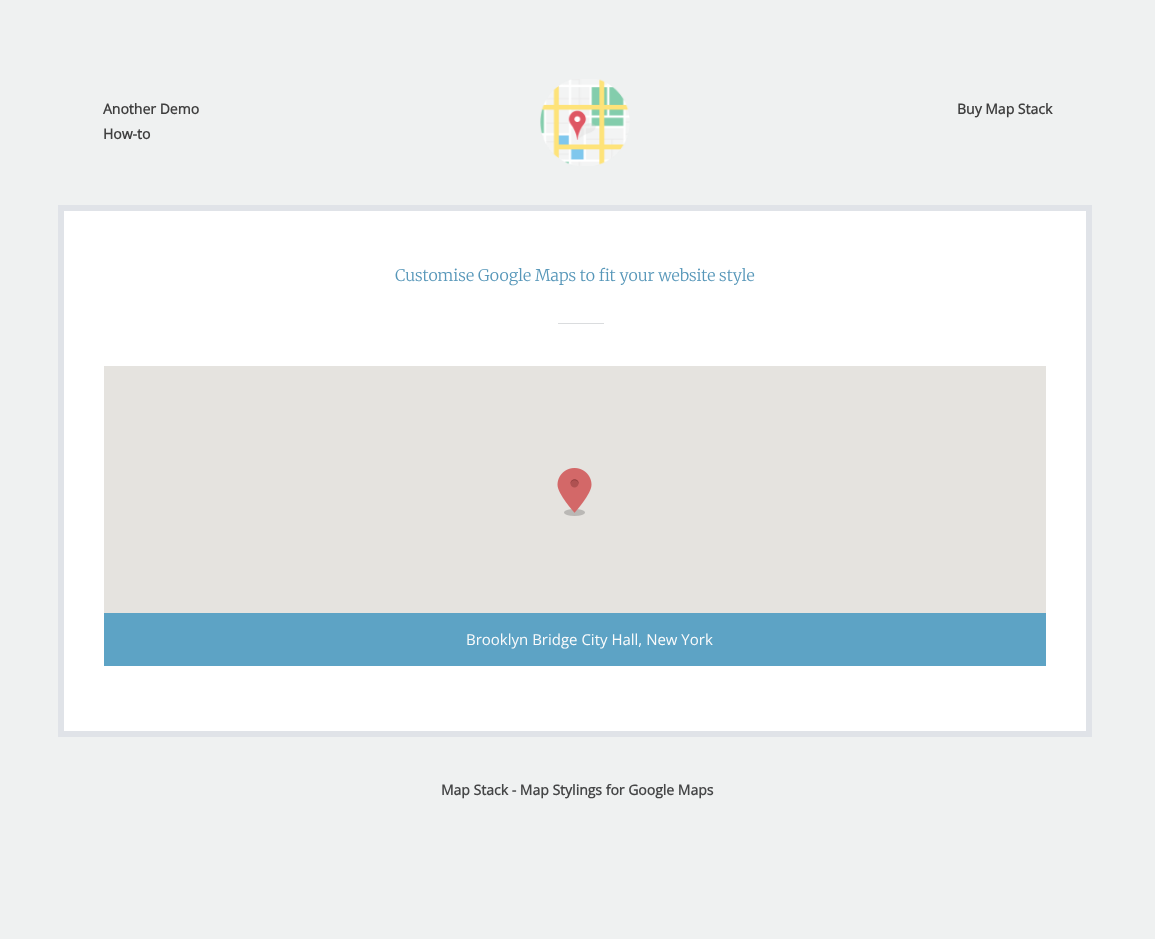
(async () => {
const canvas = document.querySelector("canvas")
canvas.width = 1155
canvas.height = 939
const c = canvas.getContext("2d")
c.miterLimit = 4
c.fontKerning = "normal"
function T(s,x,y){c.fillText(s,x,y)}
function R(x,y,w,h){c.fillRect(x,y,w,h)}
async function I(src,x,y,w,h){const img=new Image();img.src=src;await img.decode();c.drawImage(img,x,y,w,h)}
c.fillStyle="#eff1f1"
R(0,0,1155,939)
c.font="bold 14px Open Sans"
c.fillStyle="#3f3f3f"
T("Another Demo",103,114)
T("How-to",103,139)
await I("1.png",540,79,90,87)
T("Buy Map Stack",957,114)
c.fillStyle="#fff"
c.beginPath()
c.rect(61,208,1028,526)
c.fill()
c.strokeStyle="#e0e3e8"
c.lineWidth=6
c.stroke()
c.font="300 16px Merriweather"
c.fillStyle="#5797b9"
T("Customise Google Maps to fit your website style",395,281)
c.fillStyle="#dadcde"
R(558,323,46,1)
c.fillStyle="#e5e3df"
R(104,366,942,247)
await I("2.png",557,468,35,48)
c.fillStyle="#5da3c5"
R(104,613,942,53)
c.font="15px Open Sans"
c.fillStyle="#fcfcfc"
T("Brooklyn Bridge City Hall, New York",466,645)
c.font="bold 14px Open Sans"
c.fillStyle="#454647"
T("Map Stack - Map Stylings for Google Maps",441,795)
})()
